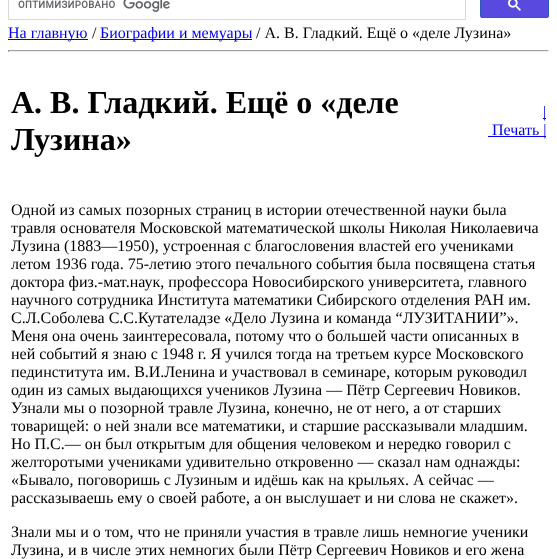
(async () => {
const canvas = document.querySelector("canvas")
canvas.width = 557
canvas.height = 559
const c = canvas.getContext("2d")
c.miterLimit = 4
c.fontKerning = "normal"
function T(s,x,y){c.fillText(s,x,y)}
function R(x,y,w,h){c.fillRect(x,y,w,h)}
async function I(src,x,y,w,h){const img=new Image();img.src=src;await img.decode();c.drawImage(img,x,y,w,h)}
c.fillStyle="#fff"
R(0,0,557,559)
c.strokeStyle="#d9d9d9"
c.strokeRect(8.5,-.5,457,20)
await I("1.png",18,0,152,12)
c.fillStyle="#5849df"
c.beginPath()
c.roundRect(480.5,-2.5,68,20,1.5)
c.fill()
c.strokeStyle="#2f5bb7"
c.stroke()
await I("2.png",508,0,13,11)
c.fillStyle="#00e"
R(8,39,80,1)
c.font="16px Liberation Serif"
T("На главную",8,38)
c.fillStyle="#000"
T("/",92,38)
c.fillStyle="#00e"
R(100,39,152,1)
T("Биографии и мемуары",100,38)
c.fillStyle="#000"
T("/ А. В. Гладкий. Ещё о «деле Лузина»",256,38)
c.fillStyle="#9f9f9f"
R(8,50,541,1)
c.fillStyle="#eee"
R(548,50,1,2)
R(8,51,541,1)
c.fillStyle="#9f9f9f"
R(8,50,1,2)
c.font="bold 32px Liberation Serif"
c.fillStyle="#000"
T("А. В. Гладкий. Ещё о «деле",11,113)
T("Лузина»",11,150)
c.fillStyle="#00e"
R(543,118,3,1)
c.font="16px Liberation Serif"
T("|",543,117)
R(488,136,58,1)
T("Печать |",492,135)
c.fillStyle="#000"
T("Одной из самых позорных страниц в истории отечественной науки была",11,215)
T("травля основателя Московской математической школы Николая Николаевича",11,233)
T("Лузина (1883—1950), устроенная с благословения властей его учениками",11,251)
T("летом 1936 года. 75-летию этого печального события была посвящена статья",11,269)
T("доктора физ.-мат.наук, профессора Новосибирского университета, главного",11,287)
T("научного сотрудника Института математики Сибирского отделения РАН им.",11,305)
T("С.Л.Соболева С.С.Кутателадзе «Дело Лузина и команда “ЛУЗИТАНИИ”».",11,323)
T("Меня она очень заинтересовала, потому что о большей части описанных в",11,341)
T("ней событий я знаю с 1948 г. Я учился тогда на третьем курсе Московского",11,359)
T("пединститута им. В.И.Ленина и участвовал в семинаре, которым руководил",11,377)
T("один из самых выдающихся учеников Лузина — Пётр Сергеевич Новиков.",11,395)
T("Узнали мы о позорной травле Лузина, конечно, не от него, а от старших",11,413)
T("товарищей: о ней знали все математики, и старшие рассказывали младшим.",11,431)
T("Но П.С.— он был открытым для общения человеком и нередко говорил с",11,449)
T("желторотыми учениками удивительно откровенно — сказал нам однажды:",11,467)
T("«Бывало, поговоришь с Лузиным и идёшь как на крыльях. А сейчас —",11,485)
T("рассказываешь ему о своей работе, а он выслушает и ни слова не скажет».",11,503)
T("Знали мы и о том, что не приняли участия в травле лишь немногие ученики",11,537)
T("Лузина, и в числе этих немногих были Пётр Сергеевич Новиков и его жена",11,555)
})()
